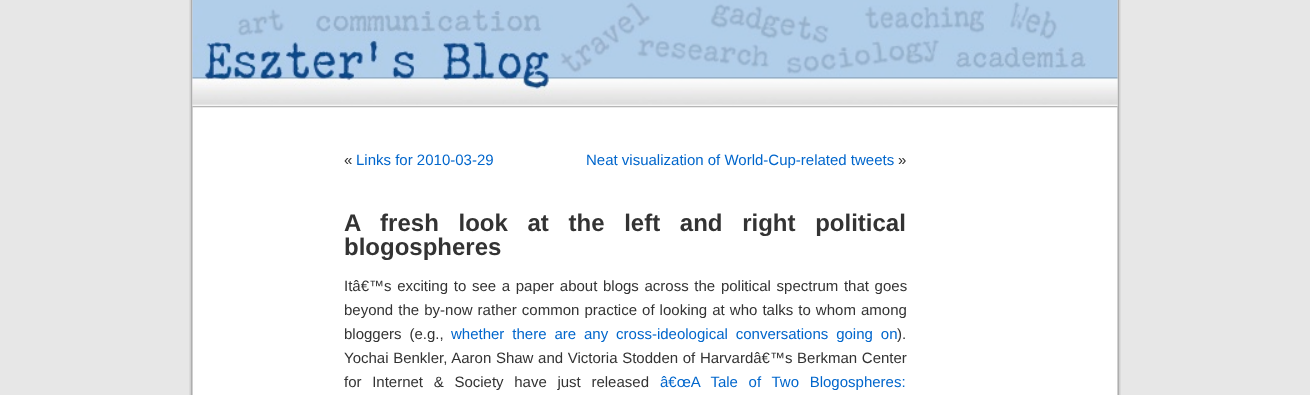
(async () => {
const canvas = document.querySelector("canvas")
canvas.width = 1310
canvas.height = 395
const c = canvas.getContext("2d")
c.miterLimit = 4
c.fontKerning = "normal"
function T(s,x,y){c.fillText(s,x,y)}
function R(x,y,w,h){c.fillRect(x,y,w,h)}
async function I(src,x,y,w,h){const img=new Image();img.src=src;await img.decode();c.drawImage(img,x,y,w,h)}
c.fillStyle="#e7e7e7"
R(0,0,1310,395)
await I("1.png",189,0,932,395)
await I("2.png",192,0,926,108)
c.font="15px Liberation Sans"
c.fillStyle="#333"
T("«",344,165)
c.fillStyle="#06c"
T("Links for 2010-03-29",356,165)
T("Neat visualization of World-Cup-related tweets",586,165)
c.fillStyle="#333"
T("»",898,165)
c.wordSpacing="13px"
c.font="bold 24px Liberation Sans"
T("A fresh look at the left and right political",344,231)
c.wordSpacing="0px"
T("blogospheres",344,255)
c.wordSpacing="1.5px"
c.font="15px Liberation Sans"
T("Itâ€™s exciting to see a paper about blogs across the political spectrum that goes",344,291)
c.wordSpacing="0.9px"
T("beyond the by-now rather common practice of looking at who talks to whom among",344,315)
c.wordSpacing="3.75px"
T("bloggers (e.g.,",344,339)
c.fillStyle="#06c"
T("whether there are any cross-ideological conversations going on",451,339)
c.wordSpacing="0px"
c.fillStyle="#333"
T(").",897,339)
c.wordSpacing="0.5px"
T("Yochai Benkler, Aaron Shaw and Victoria Stodden of Harvardâ€™s Berkman Center",344,363)
c.wordSpacing="6.5px"
T("for Internet & Society have just released",344,387)
c.fillStyle="#06c"
T("â€œA Tale of Two Blogospheres:",660,387)
})()
